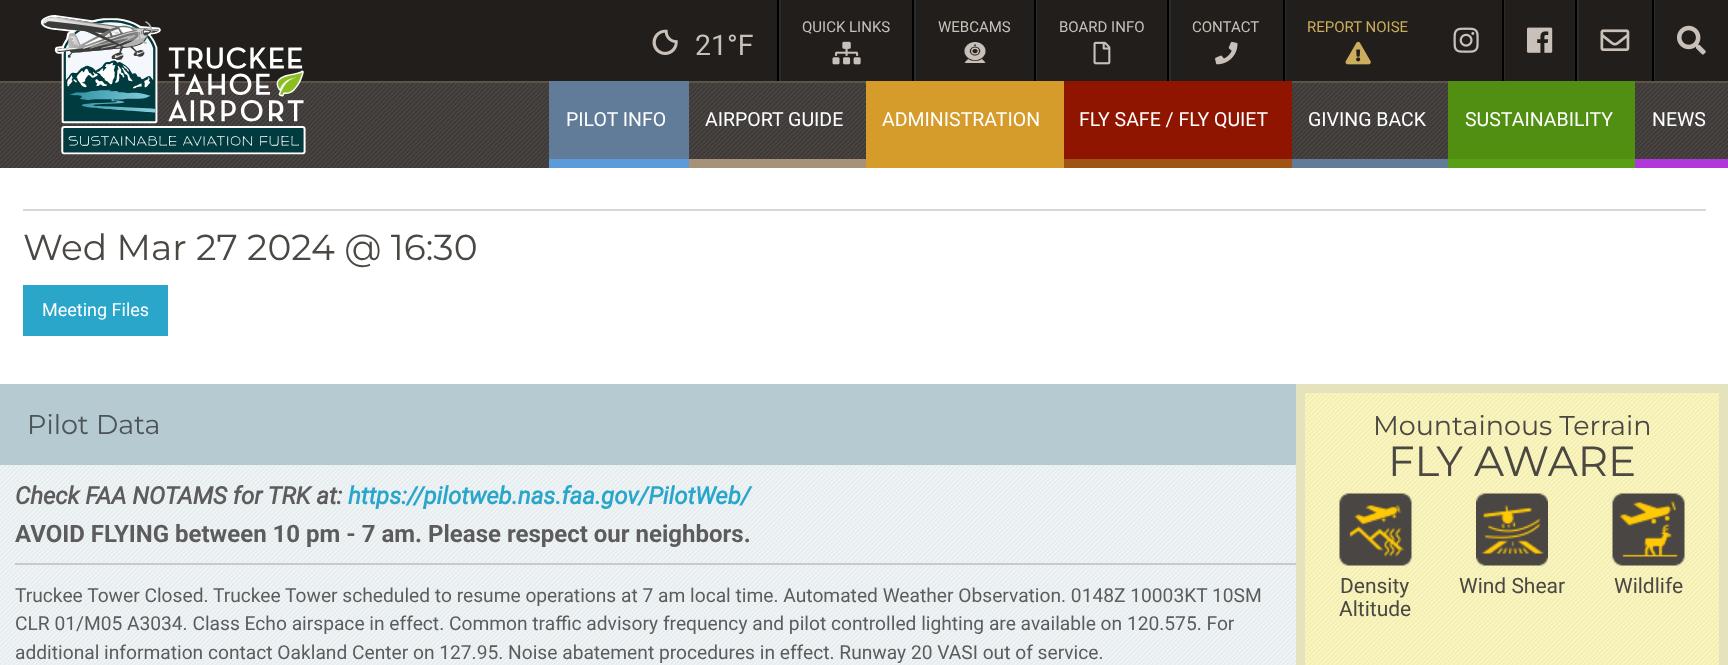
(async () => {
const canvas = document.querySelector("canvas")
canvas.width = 1728
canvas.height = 665
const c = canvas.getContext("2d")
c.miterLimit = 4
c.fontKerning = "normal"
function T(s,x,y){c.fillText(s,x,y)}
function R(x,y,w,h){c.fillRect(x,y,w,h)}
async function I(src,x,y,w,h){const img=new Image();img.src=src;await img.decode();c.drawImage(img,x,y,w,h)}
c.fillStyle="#fff"
R(0,0,1728,665)
await I("1.png",0,83,1728,85)
c.fillStyle="#211e1b"
R(0,0,1728,81)
c.fillStyle="#5c544b"
R(0,81,1728,2)
await I("2.png",40,15,266,140)
await I("3.png",652,29,26,26)
c.font="28.5px Roboto"
c.fillStyle="#c9c0b9"
T("21°F",695,55)
c.fillStyle="#2b2b2b"
R(779,0,2,81)
c.fillStyle="#000"
R(777,0,2,81)
c.font="15px Roboto"
c.fillStyle="#c9c0b9"
T("QUICK LINKS",802,32)
await I("4.png",832,41,29,24)
c.fillStyle="#2b2b2b"
R(914,0,2,81)
c.fillStyle="#000"
R(912,0,2,81)
c.fillStyle="#c9c0b9"
T("WEBCAMS",938,32)
await I("5.png",964,42,22,21)
c.fillStyle="#2b2b2b"
R(1036,0,1,81)
c.fillStyle="#000"
R(1034,0,2,81)
c.fillStyle="#c9c0b9"
T("BOARD INFO",1059,32)
await I("6.png",1093,41,18,24)
c.fillStyle="#2b2b2b"
R(1169,0,2,81)
c.fillStyle="#000"
R(1167,0,2,81)
c.fillStyle="#c9c0b9"
T("CONTACT",1192,32)
await I("7.png",1215,41,23,24)
c.fillStyle="#2b2b2b"
R(1285,0,1,81)
c.fillStyle="#000"
R(1283,0,2,81)
c.fillStyle="#ccac5d"
T("REPORT NOISE",1307,32)
await I("8.png",1345,41,26,24)
await I("9.png",1453,27,26,26)
c.fillStyle="#2b2b2b"
R(1504,0,1,81)
c.fillStyle="#000"
R(1502,0,2,81)
await I("10.png",1527,27,26,26)
c.fillStyle="#2b2b2b"
R(1577,0,2,81)
c.fillStyle="#000"
R(1575,0,2,81)
await I("11.png",1600,29,30,22)
c.fillStyle="#2b2b2b"
R(1654,0,1,81)
c.fillStyle="#000"
R(1652,0,2,81)
await I("12.png",1677,25,29,30)
c.fillStyle="#5c9ada"
R(549,159,140,9)
c.fillStyle="#617c99"
R(549,81,140,78)
c.font="19.5px Roboto"
c.fillStyle="#fff"
T("PILOT INFO",566,126)
c.fillStyle="#a69278"
R(689,159,177,9)
c.fillStyle="#fff"
T("AIRPORT GUIDE",705,126)
c.fillStyle="#d59b2b"
R(866,81,198,87)
c.fillStyle="#fff"
T("ADMINISTRATION",882,126)
c.fillStyle="#9f5415"
R(1064,159,228,9)
c.fillStyle="#901501"
R(1064,81,228,78)
c.fillStyle="#fff"
T("FLY SAFE / FLY QUIET",1079,126)
c.fillStyle="#617c99"
R(1292,159,156,9)
c.fillStyle="#fff"
T("GIVING BACK",1308,126)
c.fillStyle="#599f15"
R(1448,159,187,9)
c.fillStyle="#508f12"
R(1448,81,187,78)
c.fillStyle="#fff"
T("SUSTAINABILITY",1465,126)
c.fillStyle="#b237da"
R(1635,159,93,9)
c.fillStyle="#fff"
T("NEWS",1652,126)
c.fillStyle="#d6d6d6"
R(23,209,1683,2)
c.font="36px Montserrat"
c.fillStyle="#4b4743"
T("Wed Mar 27 2024 @ 16:30",23,260)
c.fillStyle="#2ba6cb"
R(23,285,145,51)
c.font="18px Roboto"
c.fillStyle="#fff"
T("Meeting Files",42,316)
await I("13.png",0,465,1296,200)
c.fillStyle="#b5cad1"
R(0,384,1296,81)
c.font="27px Montserrat"
c.fillStyle="#4d5356"
T("Pilot Data",27,434)
c.font="italic bold 24px Roboto"
c.fillStyle="#5c5c5c"
T("Check FAA NOTAMS for TRK at:",15,504)
c.fillStyle="#2ba6cb"
T("https://pilotweb.nas.faa.gov/PilotWeb/",348,504)
c.font="bold 24px Roboto"
c.fillStyle="#5c5c5c"
T("AVOID FLYING between 10 pm - 7 am. Please respect our neighbors.",15,542)
c.fillStyle="#cacaca"
R(15,563,1281,2)
c.font="19.2px Roboto"
c.fillStyle="#5c5c5c"
T("Truckee Tower Closed. Truckee Tower scheduled to resume operations at 7 am local time. Automated Weather Observation. 0148Z 10003KT 10SM",15,602)
T("CLR 01/M05 A3034. Class Echo airspace in effect. Common traffic advisory frequency and pilot controlled lighting are available on 120.575. For",15,630)
T("additional information contact Oakland Center on 127.95. Noise abatement procedures in effect. Runway 20 VASI out of service.",15,659)
await I("14.png",1305,393,414,272)
c.strokeStyle="#e5e2be"
c.lineWidth=9
c.strokeRect(1300.5,388.5,423,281)
c.font="27px Montserrat"
c.fillStyle="#4b4743"
T("Mountainous Terrain",1373,435)
c.font="42px Montserrat"
T("FLY AWARE",1388,476)
await I("15.png",1339,493,73,73)
c.font="21px Roboto"
T("Density",1340,593)
T("Altitude",1339,616)
await I("16.png",1476,493,72,73)
T("Wind Shear",1459,593)
await I("17.png",1612,493,73,73)
T("Wildlife",1614,593)
})()
